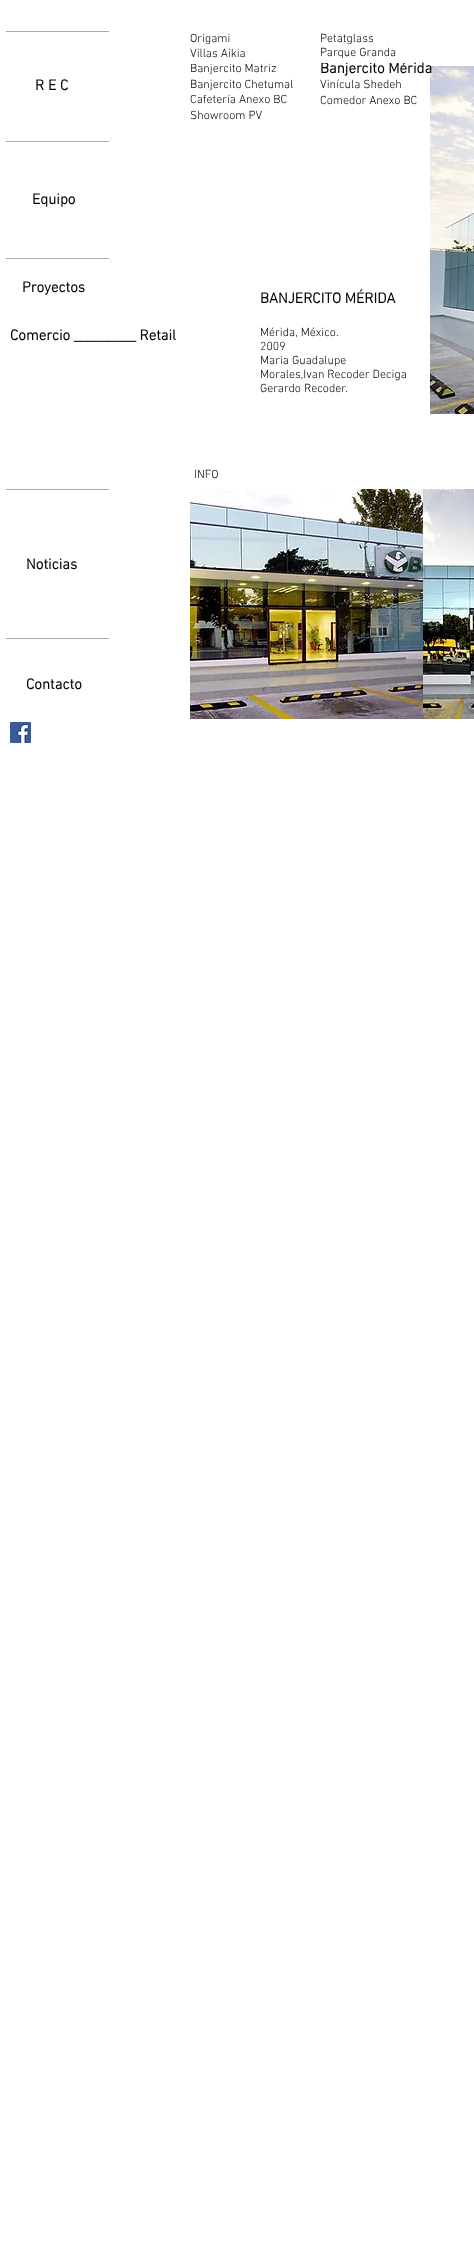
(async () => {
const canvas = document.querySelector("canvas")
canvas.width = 474
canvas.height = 2251
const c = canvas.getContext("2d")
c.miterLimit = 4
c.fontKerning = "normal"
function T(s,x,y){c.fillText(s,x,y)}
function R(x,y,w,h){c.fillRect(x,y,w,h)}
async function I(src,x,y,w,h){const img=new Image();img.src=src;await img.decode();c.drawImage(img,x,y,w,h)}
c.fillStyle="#fff"
R(0,0,474,2251)
c.font="300 12px 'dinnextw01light'"
c.fillStyle="#000"
T("Origami",190,42)
T("Petatglass",320,42)
T("Banjercito Matriz",190,72)
c.fillStyle="#fff"
R(191,44,55,20)
c.fillStyle="#000"
T("Villas Aikia",190,57)
await I("1.png",430,66,44,348)
c.font="bold 15px 'dinnextw01light'"
T("Banjercito Mérida",320,73)
c.fillStyle="#fff"
R(321,44,84,19)
c.font="300 12px 'dinnextw01light'"
c.fillStyle="#000"
T("Parque Granda",320,56)
T("Cafetería Anexo BC",190,103)
c.fillStyle="#fff"
R(192,94,93,1)
c.fillStyle="#000"
T("Banjercito Chetumal",190,88)
T("Vinícula Shedeh",320,88)
T("Comedor Anexo BC",320,104)
T("Showroom PV",190,119)
c.font="bold 15px 'dinnextw01light'"
T("Comercio _________ Retail",10,340)
T("BANJERCITO MÉRIDA",260,303)
c.font="300 12px 'dinnextw01light'"
T("Mérida, México.",260,336)
T("2009",260,350)
T("Maria Guadalupe",260,364)
T("Morales,Ivan Recoder Deciga",260,378)
T("Gerardo Recoder.",260,392)
T("INFO",194,478)
await I("2.png",190,489,233,230)
await I("3.png",423,489,51,230)
c.fillStyle="#aaa8a8"
R(6,31,103,1)
c.font="bold 15px 'dinnextw01light'"
c.fillStyle="#000"
T("R E C",35,90)
c.fillStyle="#aaa8a8"
R(6,141,103,1)
c.fillStyle="#000"
T("Equipo",32,204)
c.fillStyle="#aaa8a8"
R(6,258,103,1)
c.fillStyle="#000"
T("Proyectos",22,292)
c.fillStyle="#aaa8a8"
R(6,489,103,1)
c.fillStyle="#000"
T("Noticias",26,569)
c.fillStyle="#aaa8a8"
R(6,638,103,1)
c.fillStyle="#000"
T("Contacto",26,689)
await I("4.png",10,722,21,21)
})()
